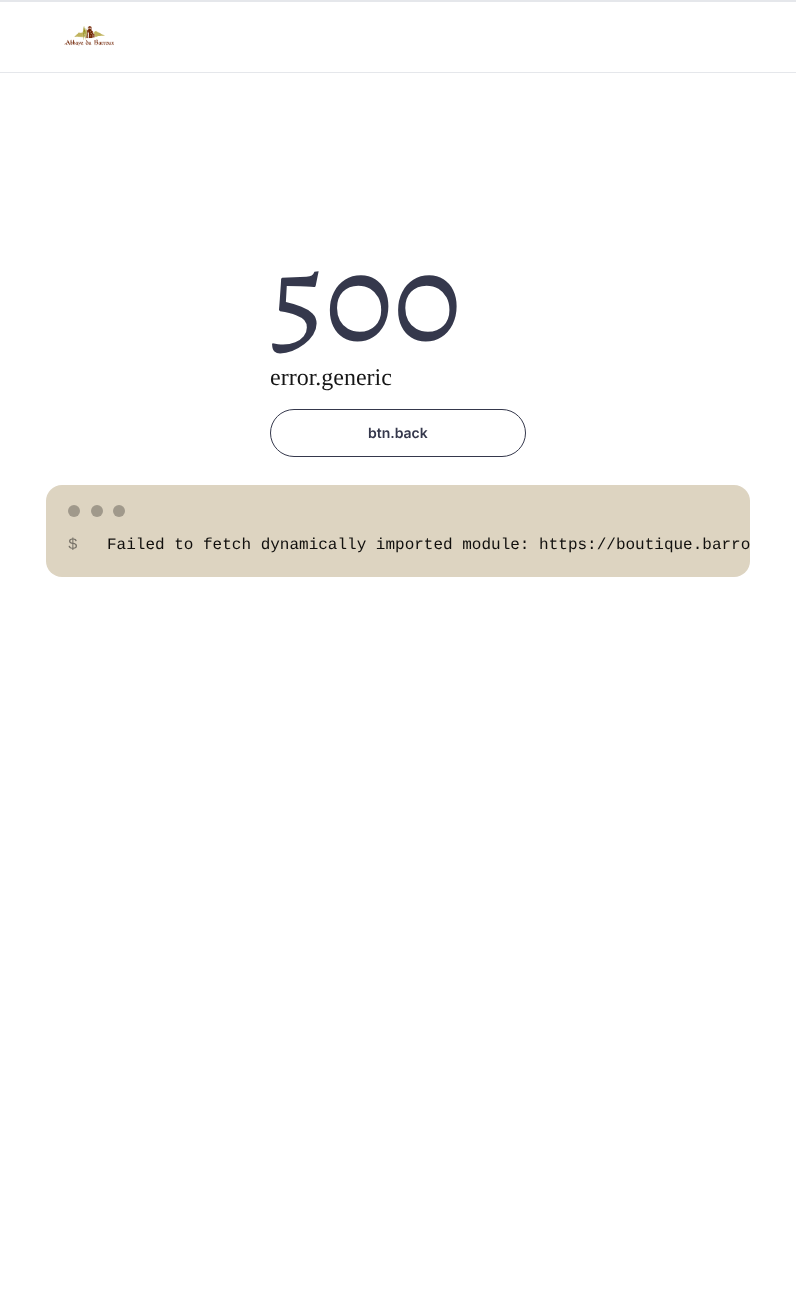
(async () => {
const canvas = document.querySelector("canvas")
canvas.width = 796
canvas.height = 1291
const c = canvas.getContext("2d")
c.miterLimit = 4
c.fontKerning = "normal"
function T(s,x,y){c.fillText(s,x,y)}
function R(x,y,w,h){c.fillRect(x,y,w,h)}
function Q(x,y,w,h,r){c.beginPath();c.roundRect(x,y,w,h,r);c.fill()}
async function I(src,x,y,w,h){const img=new Image();img.src=src;await img.decode();c.drawImage(img,x,y,w,h)}
c.fillStyle="#fff"
R(0,0,796,1291)
c.fillStyle="#e5e7eb"
R(0,72,796,1)
R(0,0,796,2)
await I("1.png",64,26,50,20)
c.font="128px Alegreya"
c.fillStyle="#35384c"
T("500",270,340)
c.font="24px Liberation Serif"
c.fillStyle="#161616"
T("error.generic",270,385)
c.beginPath()
c.roundRect(270.5,409.5,255,47,23.5)
c.strokeStyle="#35384c"
c.stroke()
c.font="600 14px Inter"
c.fillStyle="#35384c"
T("btn.back",368,438)
c.fillStyle="#ddd4c1"
Q(46,485,704,92,16)
c.fillStyle="#a0998b"
c.beginPath()
c.arc(119,511,6,0,7)
c.fill()
c.beginPath()
c.arc(97,511,6,0,7)
c.fill()
c.beginPath()
c.arc(74,511,6,0,7)
c.fill()
c.font="16px Liberation Mono"
c.fillStyle="#777268"
T("$",68,549)
c.fillStyle="#11100e"
T("Failed to fetch dynamically imported module: https://boutique.barro",107,549)
})()
